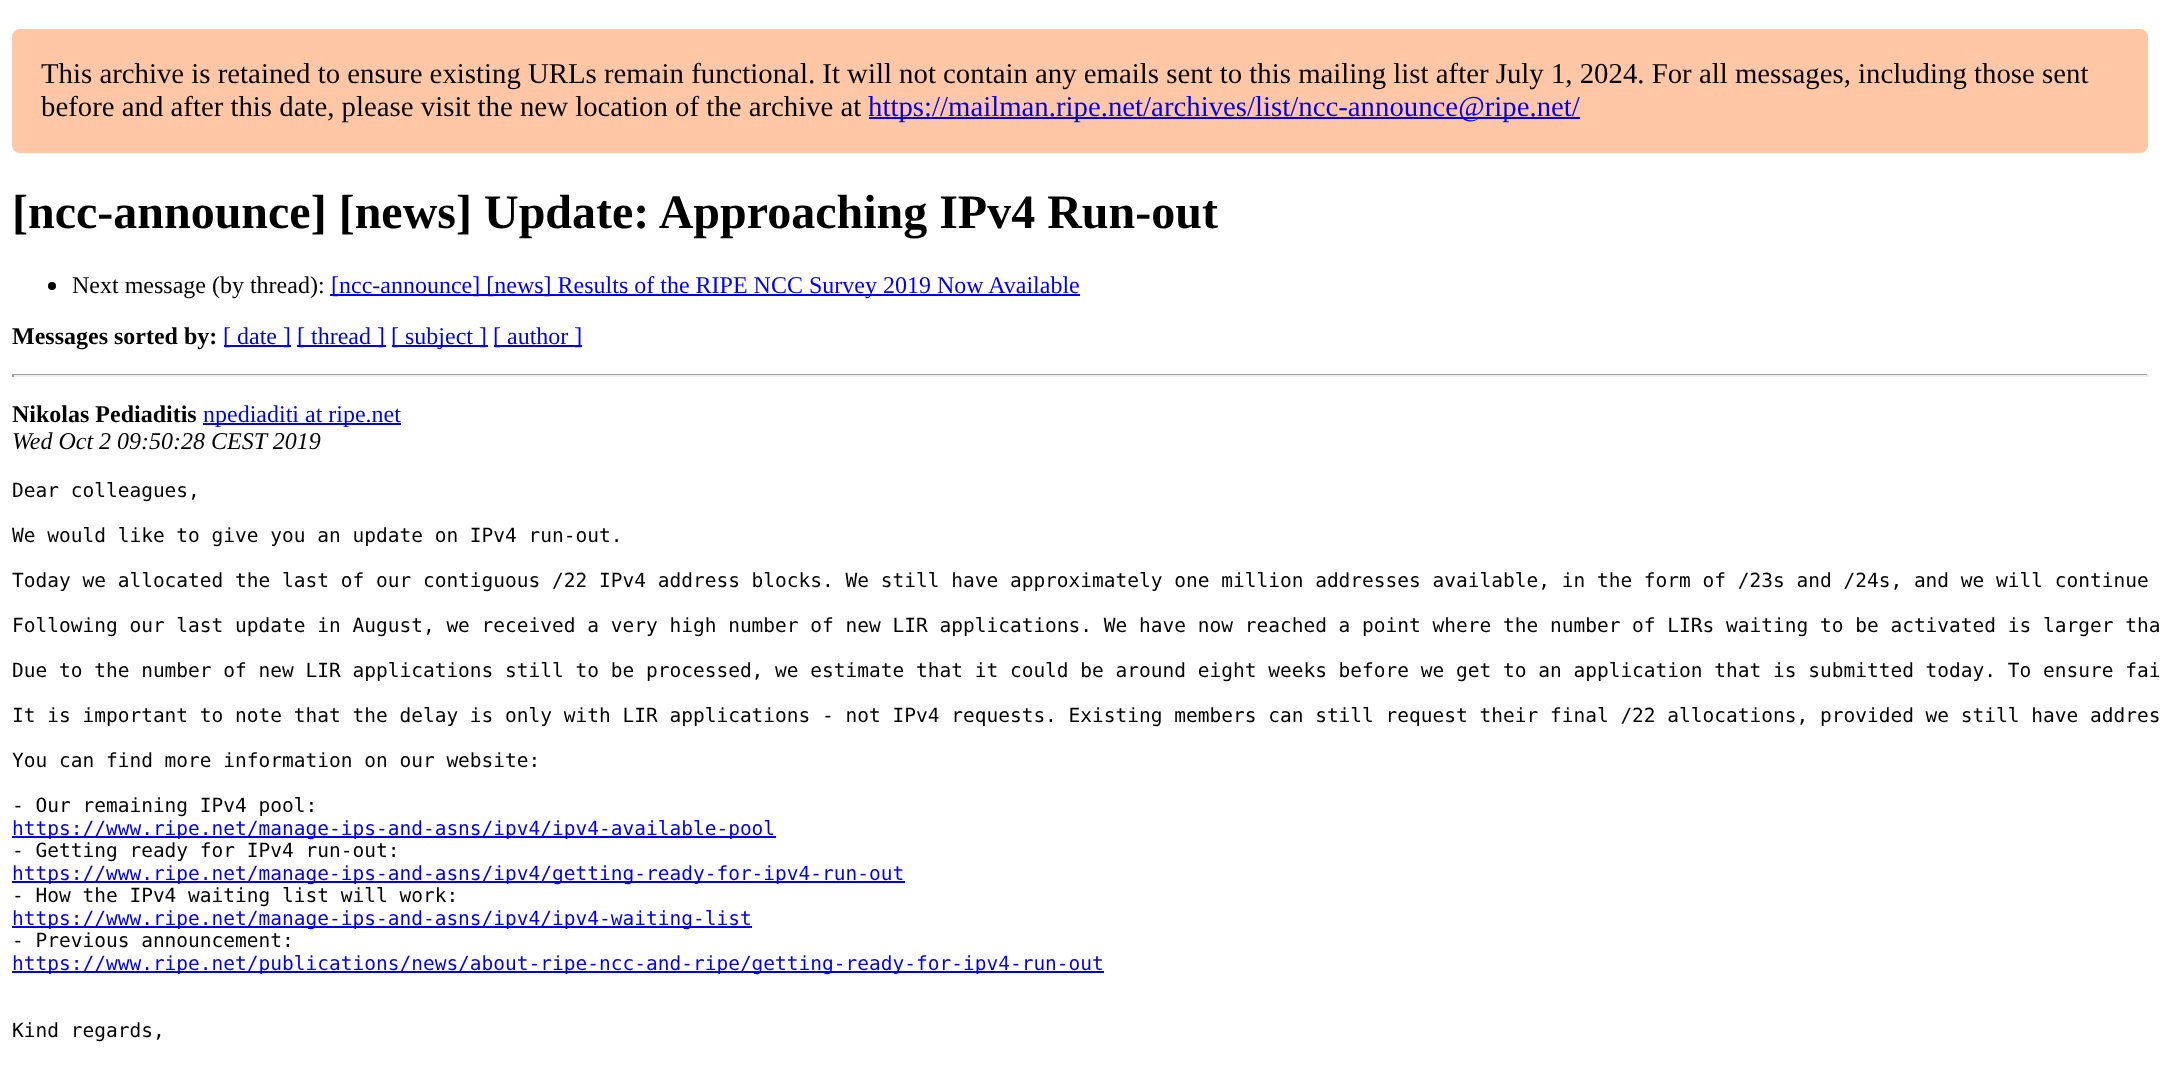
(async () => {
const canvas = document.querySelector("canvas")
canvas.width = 2160
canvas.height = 1073
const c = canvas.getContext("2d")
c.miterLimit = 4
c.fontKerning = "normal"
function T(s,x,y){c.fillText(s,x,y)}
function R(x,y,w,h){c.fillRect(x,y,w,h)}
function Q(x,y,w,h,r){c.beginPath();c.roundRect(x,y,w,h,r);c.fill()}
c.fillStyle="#fff"
R(0,0,2160,1073)
c.fillStyle="#ffc7a6"
Q(12,29,2136,124,8)
c.font="28.8px Liberation Serif"
c.fillStyle="#000"
T("This archive is retained to ensure existing URLs remain functional. It will not contain any emails sent to this mailing list after July 1, 2024. For all messages, including those sent",41,83)
T("before and after this date, please visit the new location of the archive at",41,116)
c.fillStyle="#00e"
R(869,117,711,2)
T("https://mailman.ripe.net/archives/list/ncc-announce@ripe.net/",868,116)
c.font="bold 48px Liberation Serif"
c.fillStyle="#000"
T("[ncc-announce] [news] Update: Approaching IPv4 Run-out",12,228)
c.beginPath()
c.arc(52,286,4,0,7)
c.fill()
c.font="24px Liberation Serif"
T("Next message (by thread):",72,293)
c.fillStyle="#00e"
R(330,294,750,2)
T("[ncc-announce] [news] Results of the RIPE NCC Survey 2019 Now Available",331,293)
c.font="bold 24px Liberation Serif"
c.fillStyle="#000"
T("Messages sorted by:",12,344)
c.fillStyle="#00e"
R(224,345,67,2)
c.font="24px Liberation Serif"
T("[ date ]",223,344)
R(297,345,89,2)
T("[ thread ]",297,344)
R(392,345,96,2)
T("[ subject ]",391,344)
R(494,345,88,2)
T("[ author ]",493,344)
c.fillStyle="#9f9f9f"
R(12,374,2136,1)
c.fillStyle="#eee"
R(2147,374,2,3)
R(12,375,2136,2)
c.fillStyle="#9f9f9f"
R(12,374,2,3)
c.font="bold 24px Liberation Serif"
c.fillStyle="#000"
T("Nikolas Pediaditis",12,422)
c.fillStyle="#00e"
R(203,423,198,2)
c.font="24px Liberation Serif"
T("npediaditi at ripe.net",203,422)
c.font="italic 24px Liberation Serif"
c.fillStyle="#000"
T("Wed Oct 2 09:50:28 CEST 2019",12,449)
c.font="19.5px DejaVu Sans Mono"
T("Dear colleagues,",12,497)
T("We would like to give you an update on IPv4 run-out.",12,542)
T("Today we allocated the last of our contiguous /22 IPv4 address blocks. We still have approximately one million addresses available, in the form of /23s and /24s, and we will continue",12,587)
T("Following our last update in August, we received a very high number of new LIR applications. We have now reached a point where the number of LIRs waiting to be activated is larger tha",12,632)
T("Due to the number of new LIR applications still to be processed, we estimate that it could be around eight weeks before we get to an application that is submitted today. To ensure fai",12,677)
T("It is important to note that the delay is only with LIR applications - not IPv4 requests. Existing members can still request their final /22 allocations, provided we still have addres",12,722)
T("You can find more information on our website:",12,767)
T("- Our remaining IPv4 pool:",12,812)
c.fillStyle="#00e"
R(12,836,764,2)
T("https://www.ripe.net/manage-ips-and-asns/ipv4/ipv4-available-pool",12,835)
c.fillStyle="#000"
T("- Getting ready for IPv4 run-out:",12,857)
c.fillStyle="#00e"
R(12,881,893,2)
T("https://www.ripe.net/manage-ips-and-asns/ipv4/getting-ready-for-ipv4-run-out",12,880)
c.fillStyle="#000"
T("- How the IPv4 waiting list will work:",12,902)
c.fillStyle="#00e"
R(12,926,740,2)
T("https://www.ripe.net/manage-ips-and-asns/ipv4/ipv4-waiting-list",12,925)
c.fillStyle="#000"
T("- Previous announcement:",12,947)
c.fillStyle="#00e"
R(12,971,1092,2)
T("https://www.ripe.net/publications/news/about-ripe-ncc-and-ripe/getting-ready-for-ipv4-run-out",12,970)
c.fillStyle="#000"
T("Kind regards,",12,1037)
})()
